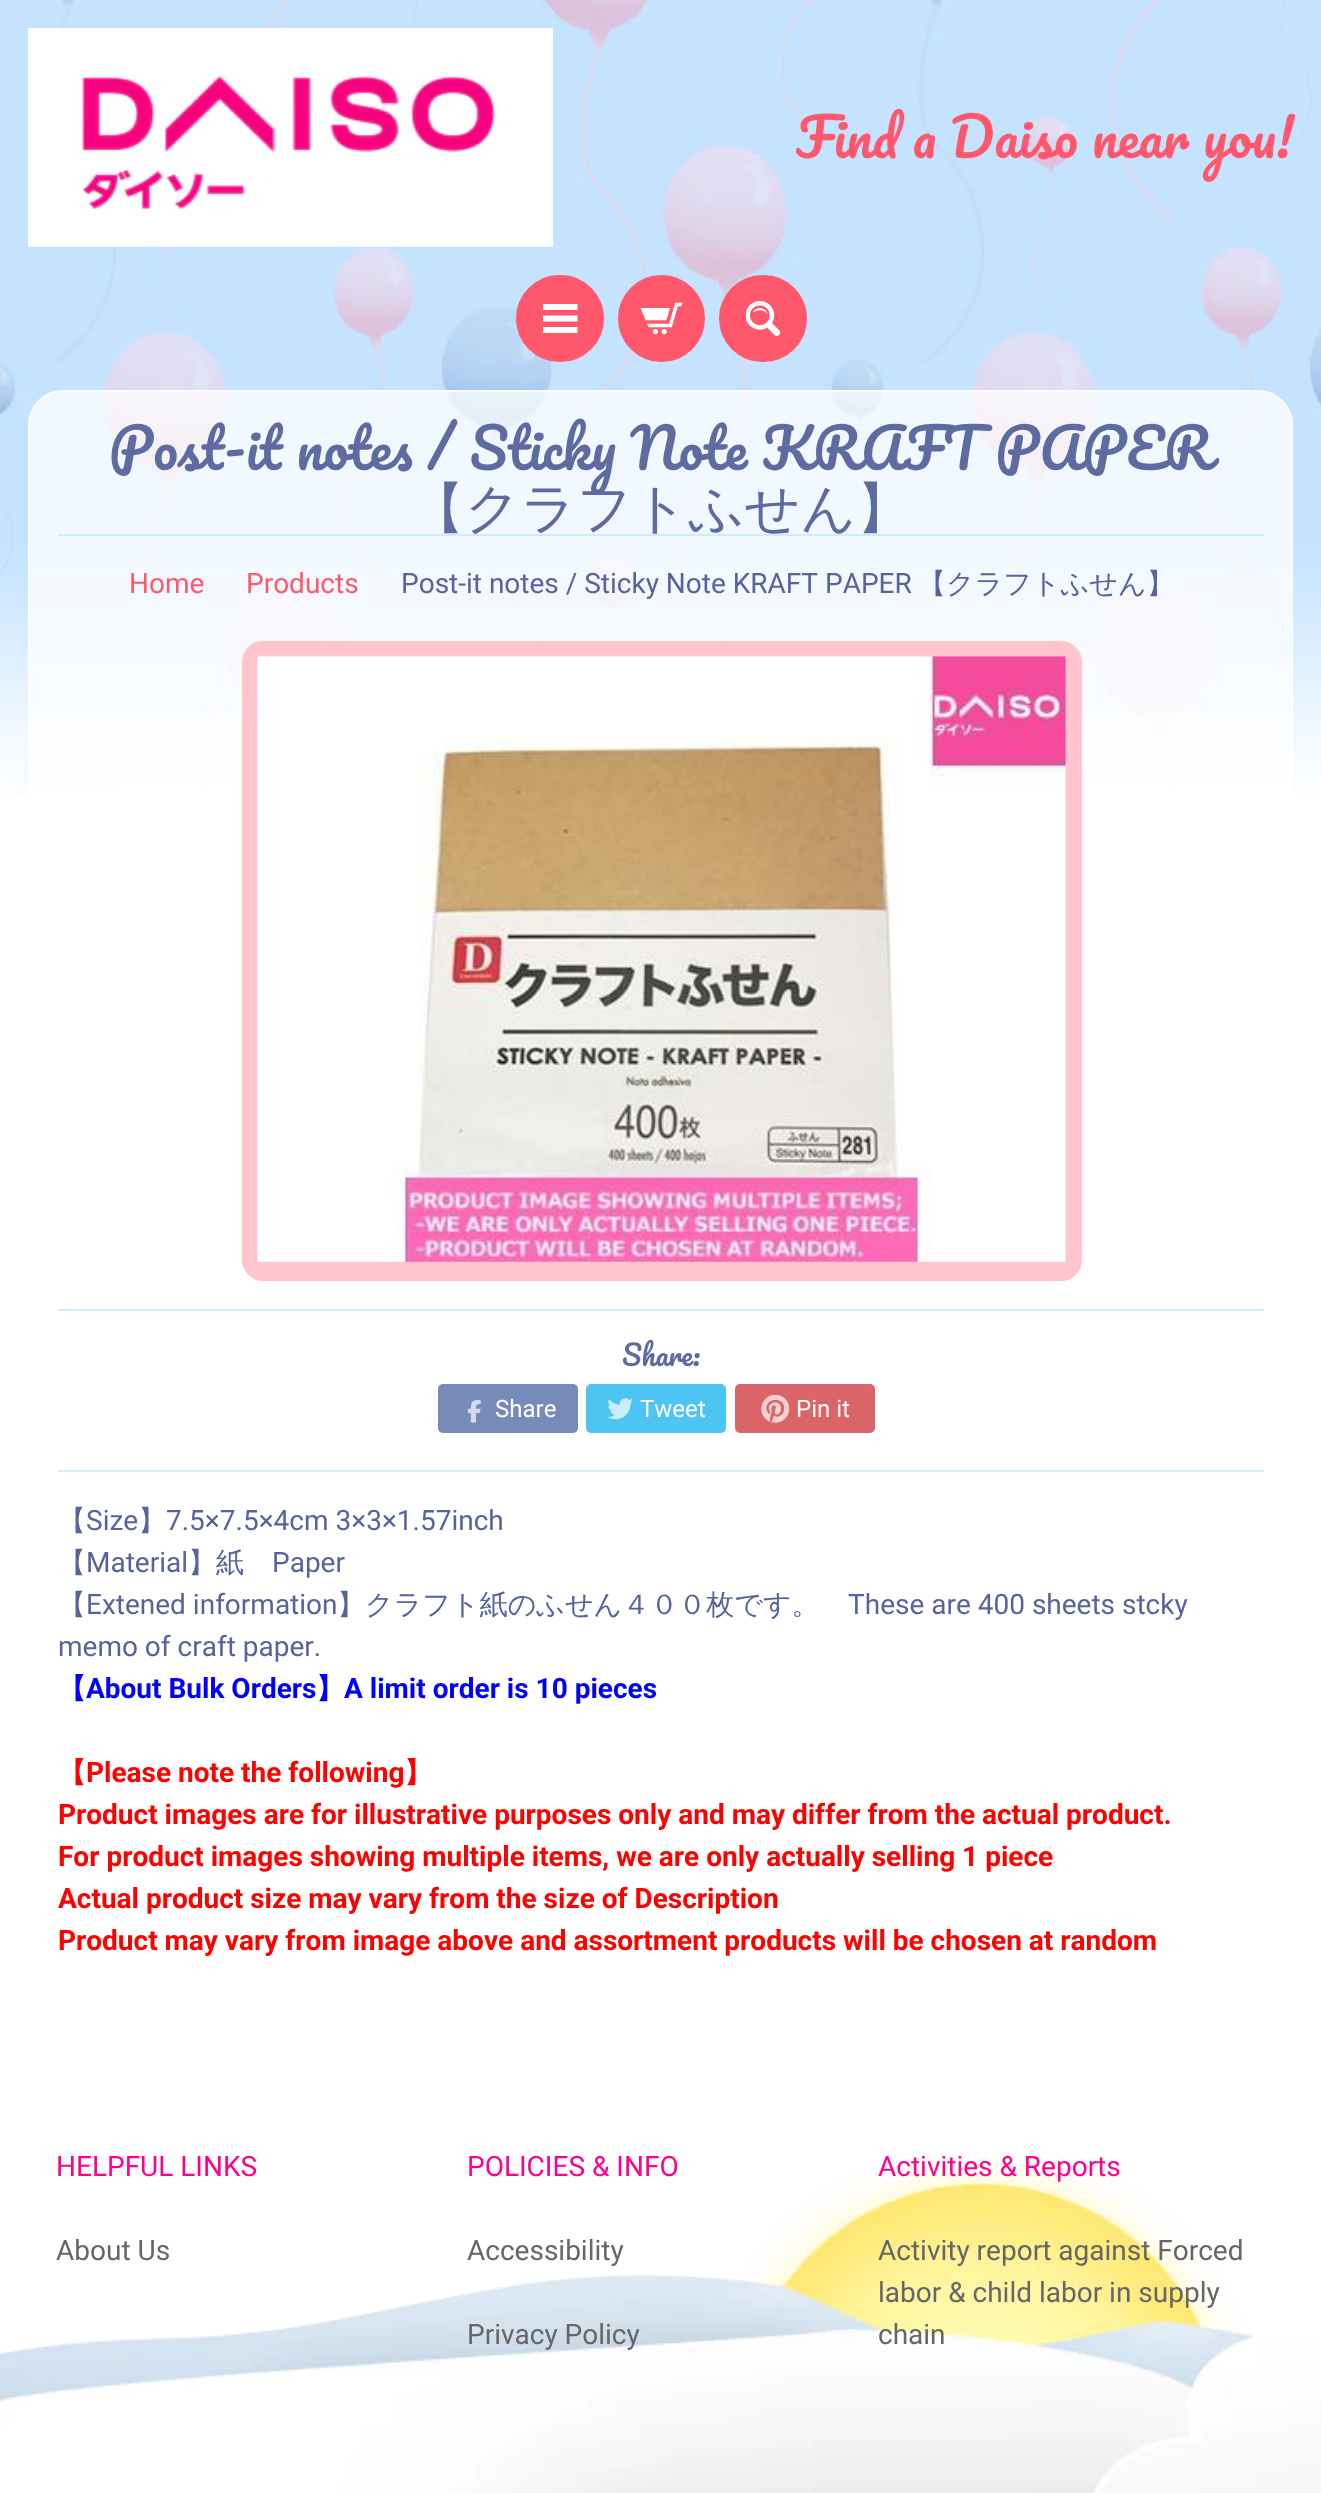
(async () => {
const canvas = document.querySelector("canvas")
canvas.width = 1321
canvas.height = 2493
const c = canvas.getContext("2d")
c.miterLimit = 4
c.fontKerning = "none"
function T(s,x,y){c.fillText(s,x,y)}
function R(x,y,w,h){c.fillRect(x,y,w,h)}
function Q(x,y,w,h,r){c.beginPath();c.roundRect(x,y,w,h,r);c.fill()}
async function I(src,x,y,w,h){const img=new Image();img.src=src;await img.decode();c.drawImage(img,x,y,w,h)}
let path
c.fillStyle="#fff"
R(0,0,1321,2493)
await I("1.png",0,0,1321,796)
await I("2.png",28,28,525,219)
c.font="52.5px Pacifico"
c.fillStyle="#ff586c"
T("Find a Daiso near you!",796,158)
c.beginPath()
c.roundRect(518.5,277.5,83,82,41)
c.fill()
c.strokeStyle="#ff586c"
c.lineWidth=5
c.stroke()
c.save()
c.beginPath()
c.rect(543,301,35,35)
c.clip()
c.fillStyle="#fff"
path = new Path2D("M577.5 310h-35v-6h35zm0 5.5h-35v6h35zm0 11.5h-35v6h35z")
c.fill(path)
c.restore()
c.beginPath()
c.arc(661.5,318.5,41,0,7)
c.fill()
c.stroke()
await I("3.png",641,302,42,33)
c.beginPath()
c.roundRect(721.5,277.5,83,82,41)
c.fill()
c.stroke()
await I("4.png",746,301,35,35)
c.fillStyle="#ffffffbf"
Q(28,390,1265,1672,35)
c.beginPath()
c.roundRect(29,391,1263,1670,34)
c.strokeStyle="#ffffffb3"
c.lineWidth=2
c.stroke()
c.fillStyle="#ceedf5"
R(58,534,1206,2)
c.font="54.7px Pacifico"
c.fillStyle="#5d6ba0"
T("Post-it notes / Sticky Note KRAFT PAPER",109,470)
c.font="500 54.7px WenQuanYi Zen Hei"
T("【クラフトふせん】",410,527)
c.font="28px Roboto"
c.fillStyle="#ff586c"
T("Home",129,593)
T("Products",246,593)
c.fillStyle="#56649a"
T("Post-it notes / Sticky Note KRAFT PAPER",401,593)
c.font="500 28px WenQuanYi Zen Hei"
T("【クラフトふせん】",918,593)
c.fillStyle="#ffc4ce"
Q(242,641,840,640,21)
await I("5.png",257,656,809,606)
c.fillStyle="#ceedf5"
R(58,1309,1206,2)
c.font="28px Pacifico"
c.fillStyle="#5d6ba0"
T("Share:",622,1366)
c.fillStyle="#768bb7"
Q(438,1384,140,49,5)
await I("6.png",468,1399,13,24)
c.font="24px Roboto"
c.fillStyle="#fff"
T("Share",495,1417)
c.fillStyle="#4dc5f2"
Q(586,1384,140,49,5)
await I("7.png",607,1398,26,22)
c.fillStyle="#fff"
T("Tweet",640,1417)
c.fillStyle="#db6468"
Q(735,1384,140,49,5)
await I("8.png",761,1395,28,28)
c.fillStyle="#fff"
T("Pin it",796,1417)
c.fillStyle="#ceedf5"
R(58,1470,1206,2)
c.font="500 28px WenQuanYi Zen Hei"
c.fillStyle="#56649a"
T("【",58,1530)
c.font="28px Roboto"
T("Size",86,1530)
c.font="500 28px WenQuanYi Zen Hei"
T("】",138,1530)
c.font="28px Roboto"
T("7.5×7.5×4cm 3×3×1.57inch",166,1530)
c.font="500 28px WenQuanYi Zen Hei"
T("【",58,1572)
c.font="28px Roboto"
T("Material",86,1572)
c.font="500 28px WenQuanYi Zen Hei"
T("】紙",188,1572)
c.font="28px Roboto"
T("Paper",272,1572)
c.font="500 28px WenQuanYi Zen Hei"
T("【",58,1614)
c.font="28px Roboto"
T("Extened information",86,1614)
c.font="500 28px WenQuanYi Zen Hei"
T("】クラフト紙のふせん４００枚です。",337,1614)
c.font="28px Roboto"
T("These are 400 sheets stcky",848,1614)
T("memo of craft paper.",58,1656)
c.font="bold 28px WenQuanYi Zen Hei"
c.fillStyle="#00f"
T("【",58,1698)
c.font="bold 28px Roboto"
T("About Bulk Orders",86,1698)
c.font="bold 28px WenQuanYi Zen Hei"
T("】",316,1698)
c.font="bold 28px Roboto"
T("A limit order is 10 pieces",344,1698)
c.font="bold 28px WenQuanYi Zen Hei"
c.fillStyle="#f00"
T("【",58,1782)
c.font="bold 28px Roboto"
T("Please note the following",86,1782)
c.font="bold 28px WenQuanYi Zen Hei"
T("】",404,1782)
c.font="bold 28px Roboto"
T("Product images are for illustrative purposes only and may differ from the actual product.",58,1824)
T("For product images showing multiple items, we are only actually selling 1 piece",58,1866)
T("Actual product size may vary from the size of Description",58,1908)
T("Product may vary from image above and assortment products will be chosen at random",58,1950)
await I("9.png",0,2155,1321,338)
c.font="28px Roboto"
c.fillStyle="#ff008d"
T("HELPFUL LINKS",56,2176)
c.fillStyle="#666"
T("About Us",56,2260)
c.fillStyle="#ff008d"
T("POLICIES & INFO",467,2176)
c.fillStyle="#666"
T("Accessibility",467,2260)
T("Privacy Policy",467,2344)
c.fillStyle="#ff008d"
T("Activities & Reports",878,2176)
c.fillStyle="#666"
T("Activity report against Forced",878,2260)
T("labor & child labor in supply",878,2302)
T("chain",878,2344)
})()
